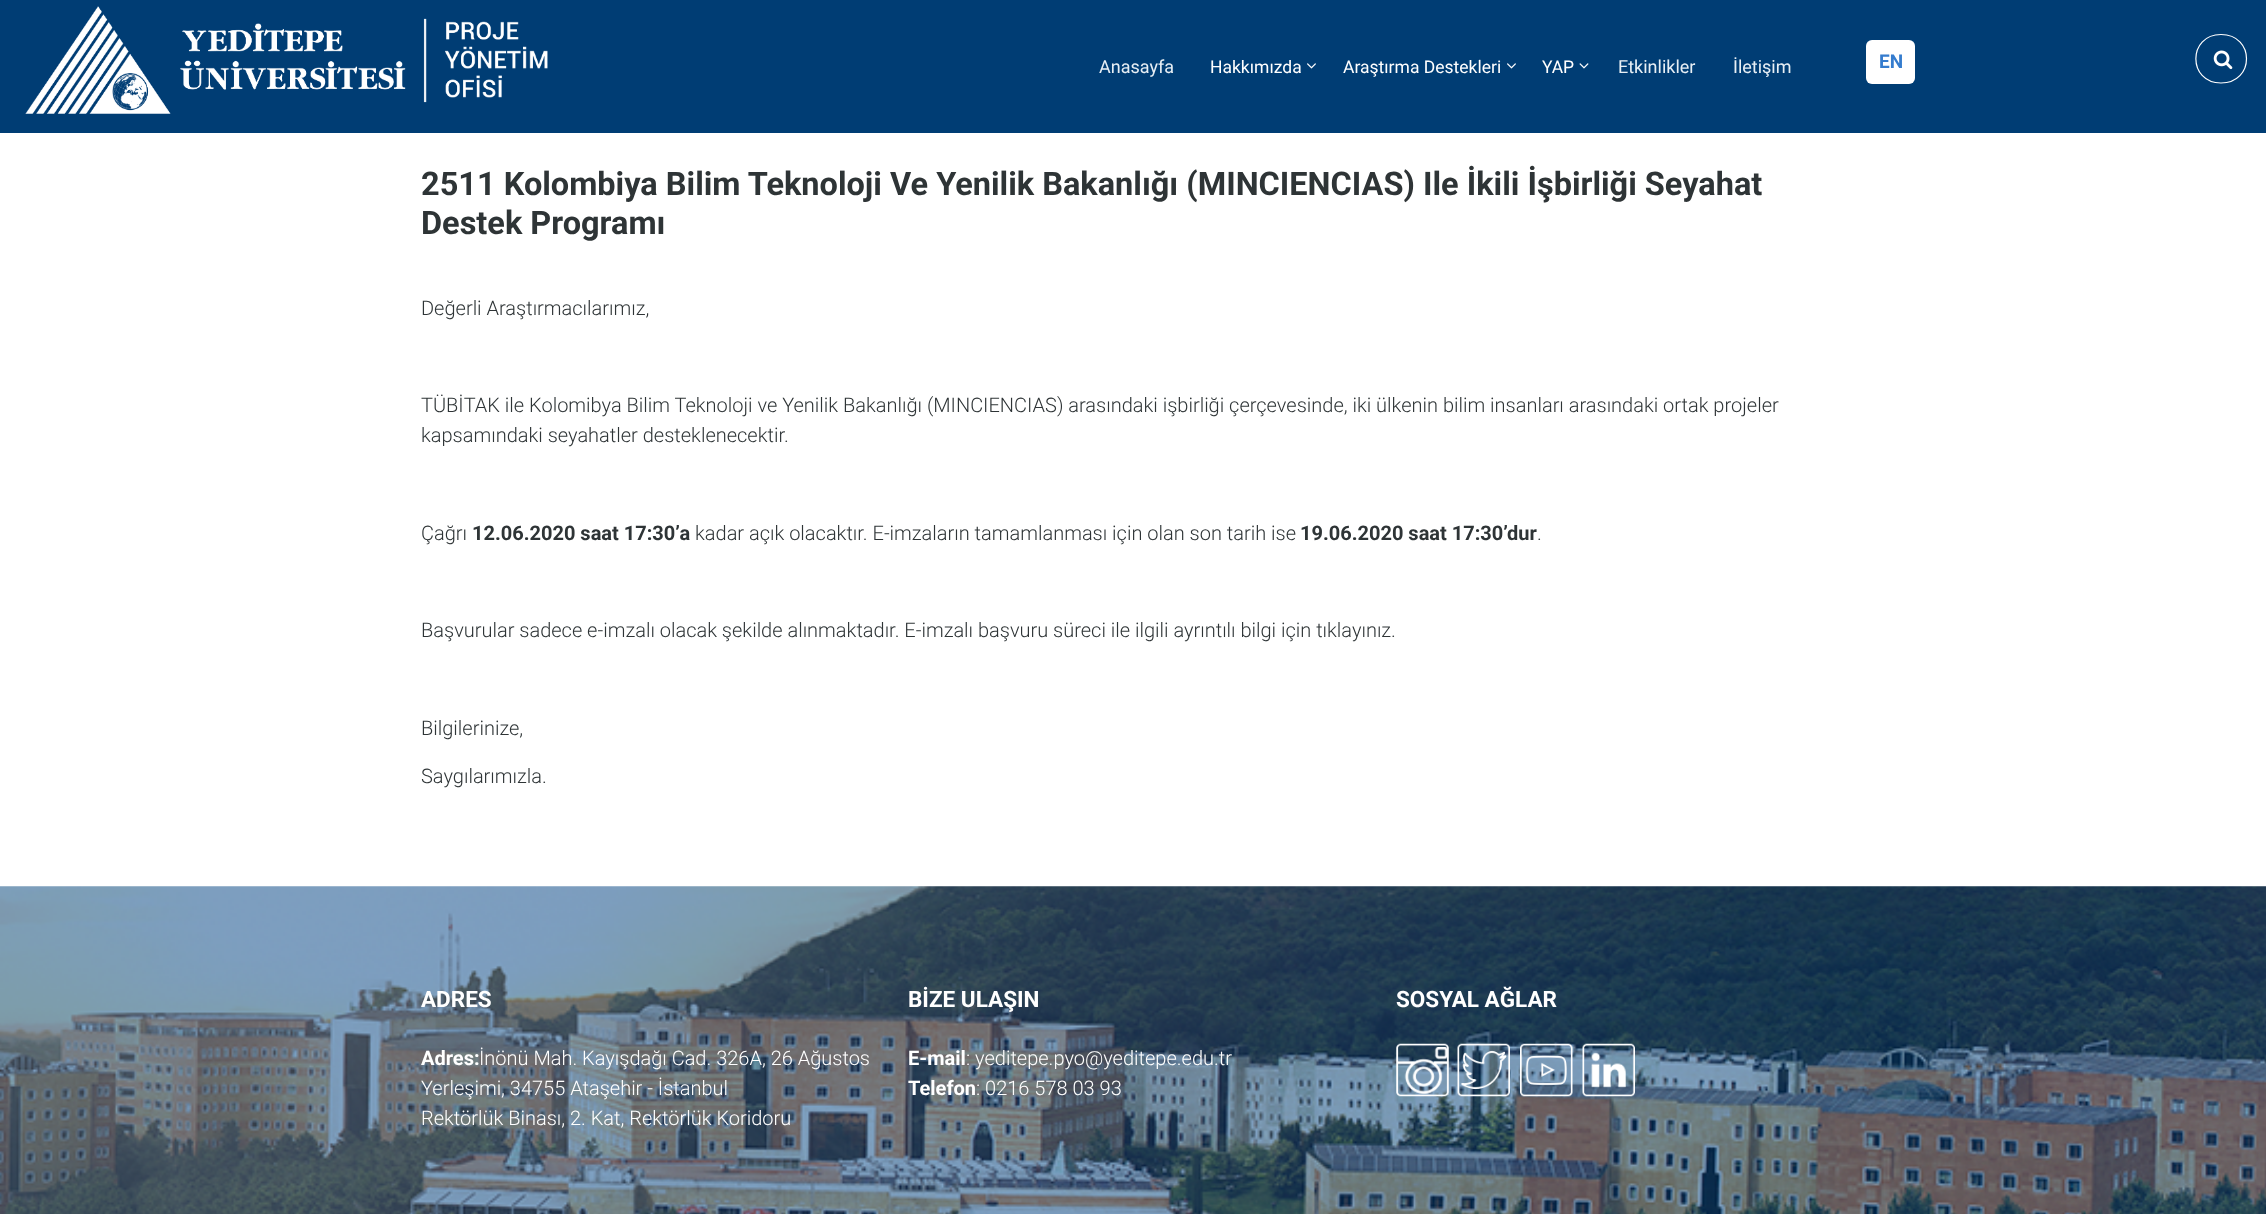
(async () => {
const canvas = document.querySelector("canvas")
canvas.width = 2266
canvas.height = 1214
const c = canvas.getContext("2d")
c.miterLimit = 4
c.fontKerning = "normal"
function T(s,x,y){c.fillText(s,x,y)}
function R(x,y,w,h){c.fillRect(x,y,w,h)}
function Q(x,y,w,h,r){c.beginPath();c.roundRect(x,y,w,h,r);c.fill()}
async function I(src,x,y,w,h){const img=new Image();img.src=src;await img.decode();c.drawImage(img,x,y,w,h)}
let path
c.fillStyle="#fff"
R(0,0,2266,1214)
c.fillStyle="#003d74"
R(0,0,2266,133)
await I("1.png",25,6,523,108)
c.font="18px Roboto"
c.fillStyle="#e7eff5"
T("Anasayfa",1099,73)
c.font="17.5px Roboto"
c.fillStyle="#fff"
T("Hakkımızda",1210,73)
await I("2.png",1307,63,9,6)
T("Araştırma Destekleri",1343,73)
await I("2.png",1507,63,9,6)
T("YAP",1542,73)
await I("3.png",1579,63,10,6)
c.font="18px Roboto"
c.fillStyle="#e7eff5"
T("Etkinlikler",1618,73)
T("İletişim",1733,73)
c.fillStyle="#fff"
Q(1866,40,49,44,6)
c.font="bold 19px Roboto"
c.fillStyle="#357cce"
T("EN",1879,68)
path = new Path2D("M2221 34.5c34 0 34 48.5 0 48.5c-33.5 0-33.5-48.5 0-48.5z")
c.strokeStyle="#fff"
c.lineWidth=1.2
c.stroke(path)
await I("4.png",2213,50,20,20)
c.font="bold 32.5px Roboto"
c.fillStyle="#2e3436"
T("2511 Kolombiya Bilim Teknoloji Ve Yenilik Bakanlığı (MINCIENCIAS) Ile İkili İşbirliği Seyahat",421,195)
T("Destek Programı",421,234)
c.font="300 20px Roboto"
T("Değerli Araştırmacılarımız,",421,315)
T("TÜBİTAK ile Kolomibya Bilim Teknoloji ve Yenilik Bakanlığı (MINCIENCIAS) arasındaki işbirliği çerçevesinde, iki ülkenin bilim insanları arasındaki ortak projeler",421,412)
T("kapsamındaki seyahatler desteklenecektir.",421,442)
T("Çağrı",421,540)
c.font="bold 20px Roboto"
T("12.06.2020 saat 17:30’a",472,540)
c.font="300 20px Roboto"
T("kadar açık olacaktır. E-imzaların tamamlanması için olan son tarih ise",695,540)
c.font="bold 20px Roboto"
T("19.06.2020 saat 17:30’dur",1300,540)
c.font="300 20px Roboto"
T(".",1537,540)
T("Başvurular sadece e-imzalı olacak şekilde alınmaktadır. E-imzalı başvuru süreci ile ilgili ayrıntılı bilgi için tıklayınız.",421,637)
T("Bilgilerinize,",421,735)
T("Saygılarımızla.",421,783)
await I("5.png",0,886,2266,328)
c.font="bold 22.5px Roboto"
c.fillStyle="#fff"
T("ADRES",421,1007)
c.font="bold 20px Roboto"
T("Adres:",421,1065)
c.font="300 20px Roboto"
T("İnönü Mah. Kayışdağı Cad. 326A, 26 Ağustos",479,1065)
T("Yerleşimi, 34755 Ataşehir - İstanbul",421,1095)
T("Rektörlük Binası, 2. Kat, Rektörlük Koridoru",421,1125)
c.font="bold 22.5px Roboto"
T("BİZE ULAŞIN",908,1007)
c.font="bold 20px Roboto"
T("E-mail",908,1065)
c.font="300 20px Roboto"
T(": yeditepe.pyo@yeditepe.edu.tr",966,1065)
c.font="bold 20px Roboto"
T("Telefon",908,1095)
c.font="300 20px Roboto"
T(": 0216 578 03 93",976,1095)
c.font="bold 22.5px Roboto"
T("SOSYAL AĞLAR",1396,1007)
await I("6.png",1396,1043,53,54)
await I("7.png",1457,1043,53,54)
await I("8.png",1520,1043,53,54)
await I("9.png",1582,1043,53,54)
})()
